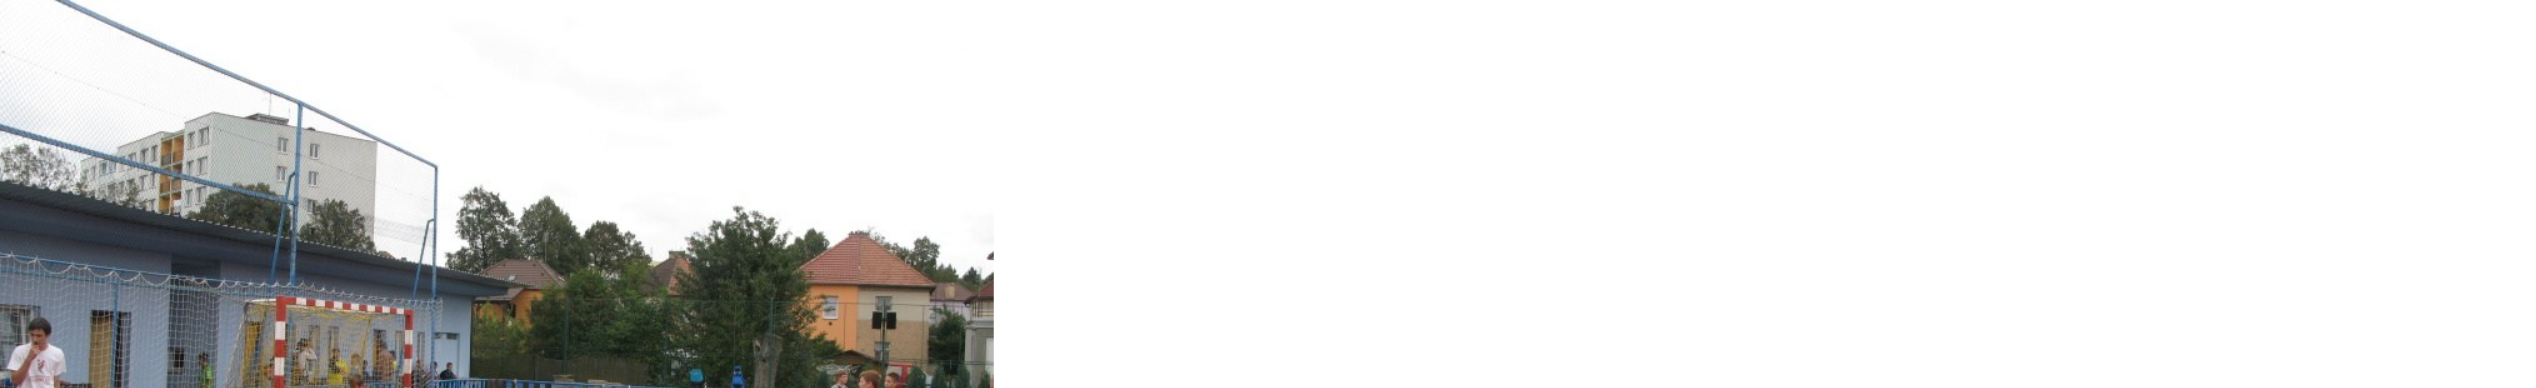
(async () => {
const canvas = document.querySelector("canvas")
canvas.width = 2536
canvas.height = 388
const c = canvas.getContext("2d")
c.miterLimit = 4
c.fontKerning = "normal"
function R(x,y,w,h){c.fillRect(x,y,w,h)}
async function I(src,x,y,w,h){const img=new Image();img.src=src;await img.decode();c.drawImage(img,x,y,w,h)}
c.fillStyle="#fff"
R(0,0,2536,388)
await I("1.png",0,0,994,388)
})()
